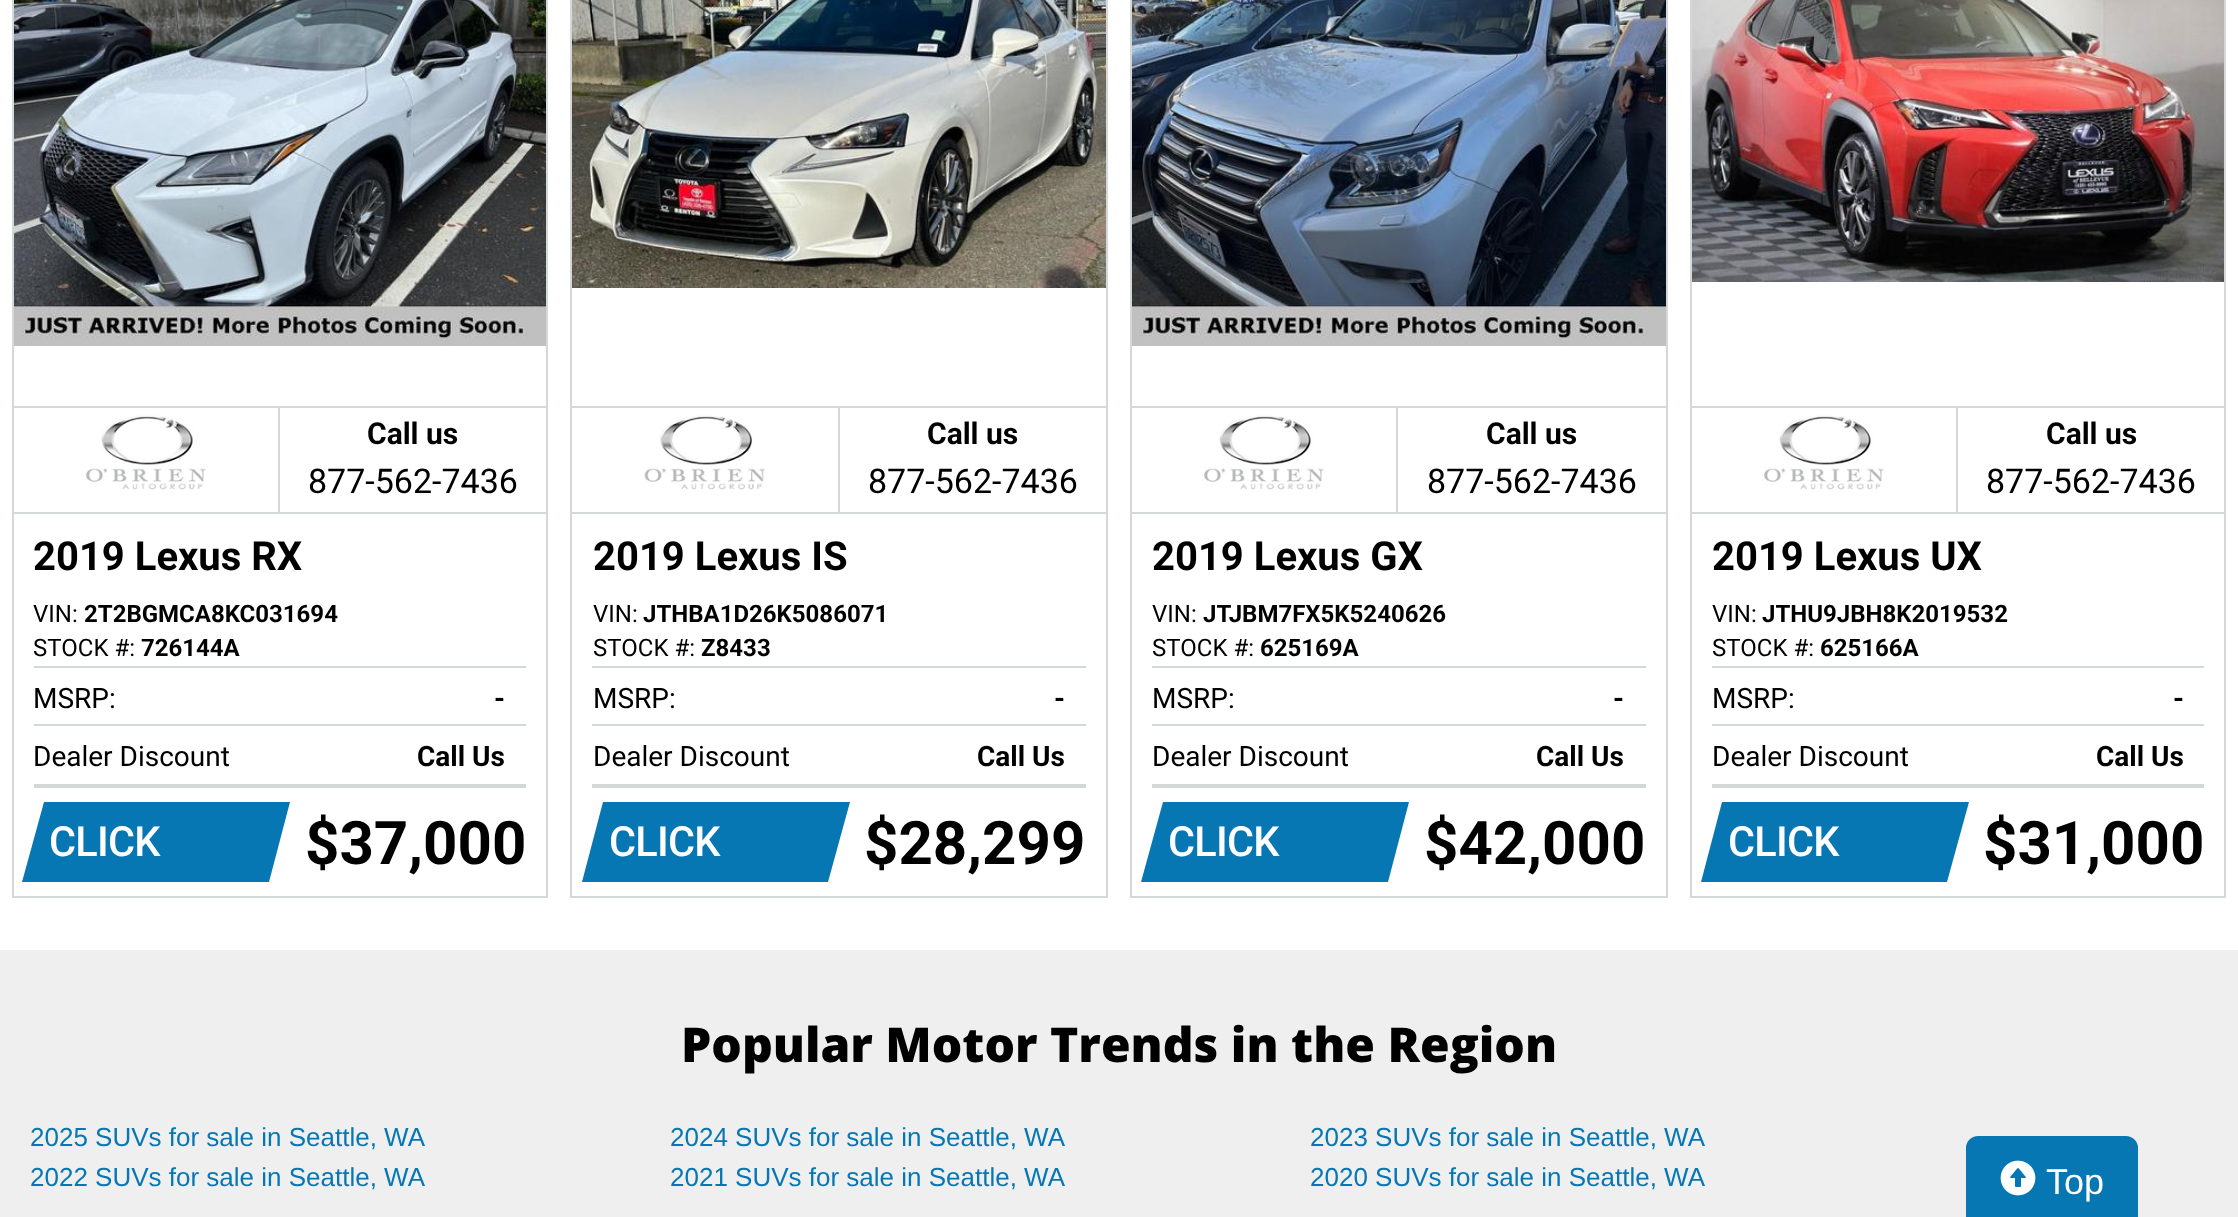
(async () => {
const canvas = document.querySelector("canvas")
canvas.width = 2238
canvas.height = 1217
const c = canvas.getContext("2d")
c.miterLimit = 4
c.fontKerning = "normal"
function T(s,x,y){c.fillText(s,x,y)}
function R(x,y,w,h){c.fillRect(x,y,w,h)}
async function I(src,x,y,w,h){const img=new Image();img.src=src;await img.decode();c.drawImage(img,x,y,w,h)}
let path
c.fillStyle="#fff"
R(0,0,2238,1217)
c.strokeStyle="#d4d8d9"
c.lineWidth=2
c.strokeRect(13,-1,534,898)
await I("1.png",14,0,532,346)
c.fillStyle="#d4d8d9"
R(14,406,532,2)
R(278,406,2,108)
R(14,512,532,2)
await I("2.png",86,415,120,75)
c.font="bold 30px Roboto"
c.fillStyle="#000"
T("Call us",367,444)
c.font="34px Roboto"
T("877-562-7436",308,493)
c.font="bold 40px Roboto"
T("2019 Lexus RX",33,570)
c.font="24px Roboto"
T("VIN:",33,622)
c.font="bold 24px Roboto"
T("2T2BGMCA8KC031694",84,622)
c.font="24px Roboto"
T("STOCK #:",33,656)
c.font="bold 24px Roboto"
T("726144A",141,656)
c.fillStyle="#d4d8d9"
R(34,666,492,2)
R(34,724,492,2)
c.font="28px Roboto"
c.fillStyle="#000"
T("MSRP:",33,708)
c.font="bold 28px Roboto"
T("-",494,708)
c.fillStyle="#d4d8d9"
R(34,784,492,4)
c.font="28px Roboto"
c.fillStyle="#000"
T("Dealer Discount",33,766)
c.font="bold 28px Roboto"
T("Call Us",417,766)
c.fillStyle="#0777b3"
path = new Path2D("M44 802h246l-21 80h-247z")
c.fill(path)
c.letterSpacing="-0.75px"
c.font="500 41.5px Roboto"
c.fillStyle="#fff"
T("CLICK",49,856)
c.letterSpacing="0px"
c.font="bold 60px Roboto"
c.fillStyle="#000"
T("$37,000",305,864)
c.strokeRect(571,-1,536,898)
await I("3.png",572,0,534,288)
c.fillStyle="#d4d8d9"
R(572,406,534,2)
R(838,406,2,108)
R(572,512,534,2)
await I("4.png",644,415,122,75)
c.font="bold 30px Roboto"
c.fillStyle="#000"
T("Call us",927,444)
c.font="34px Roboto"
T("877-562-7436",868,493)
c.font="bold 40px Roboto"
T("2019 Lexus IS",593,570)
c.font="24px Roboto"
T("VIN:",593,622)
c.font="bold 24px Roboto"
T("JTHBA1D26K5086071",643,622)
c.font="24px Roboto"
T("STOCK #:",593,656)
c.font="bold 24px Roboto"
T("Z8433",701,656)
c.fillStyle="#d4d8d9"
R(592,666,494,2)
R(592,724,494,2)
c.font="28px Roboto"
c.fillStyle="#000"
T("MSRP:",593,708)
c.font="bold 28px Roboto"
T("-",1054,708)
c.fillStyle="#d4d8d9"
R(592,784,494,4)
c.font="28px Roboto"
c.fillStyle="#000"
T("Dealer Discount",593,766)
c.font="bold 28px Roboto"
T("Call Us",977,766)
c.fillStyle="#0777b3"
path = new Path2D("M603 802h247l-22 80h-246z")
c.fill(path)
c.letterSpacing="-0.75px"
c.font="500 41.5px Roboto"
c.fillStyle="#fff"
T("CLICK",609,856)
c.letterSpacing="0px"
c.font="bold 60px Roboto"
c.fillStyle="#000"
T("$28,299",864,864)
c.strokeRect(1131,-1,536,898)
await I("5.png",1132,0,534,346)
c.fillStyle="#d4d8d9"
R(1132,406,534,2)
R(1396,406,2,108)
R(1132,512,534,2)
await I("6.png",1204,415,120,75)
c.font="bold 30px Roboto"
c.fillStyle="#000"
T("Call us",1486,444)
c.font="34px Roboto"
T("877-562-7436",1427,493)
c.font="bold 40px Roboto"
T("2019 Lexus GX",1152,570)
c.font="24px Roboto"
T("VIN:",1152,622)
c.font="bold 24px Roboto"
T("JTJBM7FX5K5240626",1203,622)
c.font="24px Roboto"
T("STOCK #:",1152,656)
c.font="bold 24px Roboto"
T("625169A",1260,656)
c.fillStyle="#d4d8d9"
R(1152,666,494,2)
R(1152,724,494,2)
c.font="28px Roboto"
c.fillStyle="#000"
T("MSRP:",1152,708)
c.font="bold 28px Roboto"
T("-",1613,708)
c.fillStyle="#d4d8d9"
R(1152,784,494,4)
c.font="28px Roboto"
c.fillStyle="#000"
T("Dealer Discount",1152,766)
c.font="bold 28px Roboto"
T("Call Us",1536,766)
c.fillStyle="#0777b3"
path = new Path2D("M1163 802h246l-21 80h-247z")
c.fill(path)
c.letterSpacing="-0.75px"
c.font="500 41.5px Roboto"
c.fillStyle="#fff"
T("CLICK",1168,856)
c.letterSpacing="0px"
c.font="bold 60px Roboto"
c.fillStyle="#000"
T("$42,000",1424,864)
c.strokeRect(1691,-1,534,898)
await I("7.png",1692,0,532,282)
c.fillStyle="#d4d8d9"
R(1692,406,532,2)
R(1956,406,2,108)
R(1692,512,532,2)
await I("8.png",1764,415,120,75)
c.font="bold 30px Roboto"
c.fillStyle="#000"
T("Call us",2046,444)
c.font="34px Roboto"
T("877-562-7436",1986,493)
c.font="bold 40px Roboto"
T("2019 Lexus UX",1712,570)
c.font="24px Roboto"
T("VIN:",1712,622)
c.font="bold 24px Roboto"
T("JTHU9JBH8K2019532",1762,622)
c.font="24px Roboto"
T("STOCK #:",1712,656)
c.font="bold 24px Roboto"
T("625166A",1820,656)
c.fillStyle="#d4d8d9"
R(1712,666,492,2)
R(1712,724,492,2)
c.font="28px Roboto"
c.fillStyle="#000"
T("MSRP:",1712,708)
c.font="bold 28px Roboto"
T("-",2173,708)
c.fillStyle="#d4d8d9"
R(1712,784,492,4)
c.font="28px Roboto"
c.fillStyle="#000"
T("Dealer Discount",1712,766)
c.font="bold 28px Roboto"
T("Call Us",2096,766)
c.fillStyle="#0777b3"
path = new Path2D("M1722 802h247l-22 80h-246z")
c.fill(path)
c.letterSpacing="-0.75px"
c.font="500 41.5px Roboto"
c.fillStyle="#fff"
T("CLICK",1728,856)
c.letterSpacing="0px"
c.font="bold 60px Roboto"
c.fillStyle="#000"
T("$31,000",1983,864)
c.fillStyle="#efefef"
R(0,950,2238,267)
c.fillStyle="#0777b3"
c.beginPath()
c.roundRect(1967,1137,170,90,11)
c.fill()
c.strokeStyle="#0777b3"
c.stroke()
await I("9.png",2000,1160,36,36)
c.font="36px Liberation Sans"
c.fillStyle="#fff"
T("Top",2046,1194)
c.font="800 48px Open Sans"
c.fillStyle="#000"
T("Popular Motor Trends in the Region",681,1062)
c.font="26px Liberation Sans"
c.fillStyle="#0777b3"
T("2025 SUVs for sale in Seattle, WA",30,1146)
T("2024 SUVs for sale in Seattle, WA",670,1146)
T("2023 SUVs for sale in Seattle, WA",1310,1146)
T("2022 SUVs for sale in Seattle, WA",30,1186)
T("2021 SUVs for sale in Seattle, WA",670,1186)
T("2020 SUVs for sale in Seattle, WA",1310,1186)
})()
